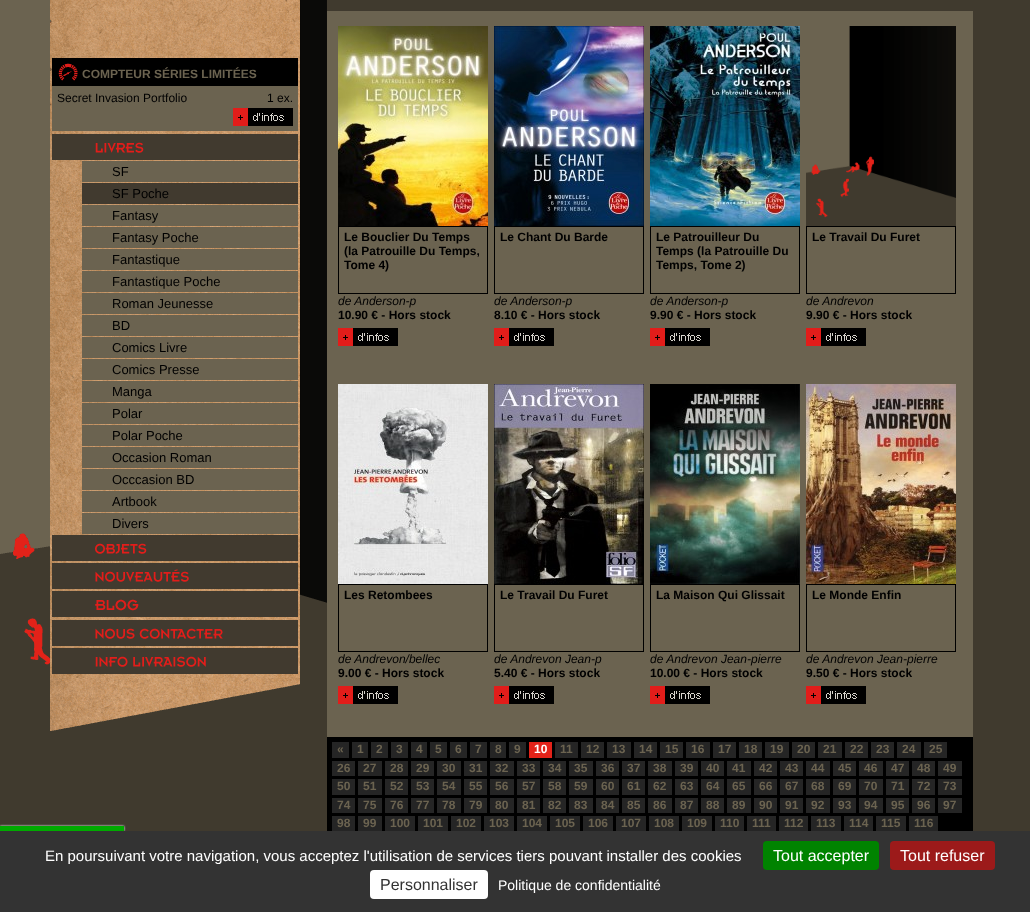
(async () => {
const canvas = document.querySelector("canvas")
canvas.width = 1030
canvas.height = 912
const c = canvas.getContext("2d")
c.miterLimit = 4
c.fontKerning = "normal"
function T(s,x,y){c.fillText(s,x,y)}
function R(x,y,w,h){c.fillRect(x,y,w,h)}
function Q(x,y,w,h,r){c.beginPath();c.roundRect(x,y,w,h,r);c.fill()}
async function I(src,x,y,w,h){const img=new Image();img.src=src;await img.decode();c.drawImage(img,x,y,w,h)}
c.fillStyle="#403a2e"
R(0,0,1030,912)
await I("1.png",0,0,327,776)
await I("2.png",50,0,250,56)
await I("3.png",50,56,250,622)
c.fillStyle="#000"
R(52,58,246,28)
await I("4.png",58,63,20,18)
c.font="bold 12px Liberation Sans"
c.fillStyle="#6b6350"
T("COMPTEUR SÉRIES LIMITÉES",82,78)
R(52,86,246,45)
c.font="12px Liberation Sans"
c.fillStyle="#000"
T("Secret Invasion Portfolio",57,102)
T("1 ex.",267,102)
await I("5.png",233,108,60,18)
await I("6.png",52,134,246,26)
c.fillStyle="#6b6350"
R(82,161,216,21)
c.font="13px Liberation Sans"
c.fillStyle="#000"
T("SF",112,176)
c.fillStyle="#413a2f"
R(82,183,216,21)
c.fillStyle="#000"
T("SF Poche",112,198)
c.fillStyle="#6b6350"
R(82,205,216,21)
c.fillStyle="#000"
T("Fantasy",112,220)
c.fillStyle="#6b6350"
R(82,227,216,21)
c.fillStyle="#000"
T("Fantasy Poche",112,242)
c.fillStyle="#6b6350"
R(82,249,216,21)
c.fillStyle="#000"
T("Fantastique",112,264)
c.fillStyle="#6b6350"
R(82,271,216,21)
c.fillStyle="#000"
T("Fantastique Poche",112,286)
c.fillStyle="#6b6350"
R(82,293,216,21)
c.fillStyle="#000"
T("Roman Jeunesse",112,308)
c.fillStyle="#6b6350"
R(82,315,216,21)
c.fillStyle="#000"
T("BD",112,330)
c.fillStyle="#6b6350"
R(82,337,216,21)
c.fillStyle="#000"
T("Comics Livre",112,352)
c.fillStyle="#6b6350"
R(82,359,216,21)
c.fillStyle="#000"
T("Comics Presse",112,374)
c.fillStyle="#6b6350"
R(82,381,216,21)
c.fillStyle="#000"
T("Manga",112,396)
c.fillStyle="#6b6350"
R(82,403,216,21)
c.fillStyle="#000"
T("Polar",112,418)
c.fillStyle="#6b6350"
R(82,425,216,21)
c.fillStyle="#000"
T("Polar Poche",112,440)
c.fillStyle="#6b6350"
R(82,447,216,21)
c.fillStyle="#000"
T("Occasion Roman",112,462)
c.fillStyle="#6b6350"
R(82,469,216,21)
c.fillStyle="#000"
T("Occcasion BD",112,484)
c.fillStyle="#6b6350"
R(82,491,216,21)
c.fillStyle="#000"
T("Artbook",112,506)
c.fillStyle="#6b6350"
R(82,513,216,21)
c.fillStyle="#000"
T("Divers",112,528)
await I("7.png",52,535,246,26)
await I("8.png",52,563,246,26)
await I("9.png",52,591,246,26)
await I("10.png",52,620,246,26)
await I("11.png",52,648,246,26)
await I("12.png",50,678,250,53)
c.fillStyle="#6b6350"
R(327,11,646,726)
await I("13.png",338,26,150,200)
c.strokeStyle="#000"
c.strokeRect(338.5,226.5,149,67)
c.font="bold 12px Liberation Sans"
c.fillStyle="#000"
T("Le Bouclier Du Temps",344,241)
T("(la Patrouille Du Temps,",344,255)
T("Tome 4)",344,269)
c.font="italic 12px Liberation Sans"
T("de Anderson-p",338,305)
c.font="bold 12px Liberation Sans"
T("10.90 € - Hors stock",338,319)
await I("5.png",338,328,60,18)
await I("14.png",494,26,150,200)
c.strokeRect(494.5,226.5,149,67)
T("Le Chant Du Barde",500,241)
c.font="italic 12px Liberation Sans"
T("de Anderson-p",494,305)
c.font="bold 12px Liberation Sans"
T("8.10 € - Hors stock",494,319)
await I("5.png",494,328,60,18)
await I("15.png",650,26,150,200)
c.strokeRect(650.5,226.5,149,67)
T("Le Patrouilleur Du",656,241)
T("Temps (la Patrouille Du",656,255)
T("Temps, Tome 2)",656,269)
c.font="italic 12px Liberation Sans"
T("de Anderson-p",650,305)
c.font="bold 12px Liberation Sans"
T("9.90 € - Hors stock",650,319)
await I("5.png",650,328,60,18)
await I("16.png",806,26,150,200)
c.strokeRect(806.5,226.5,149,67)
T("Le Travail Du Furet",812,241)
c.font="italic 12px Liberation Sans"
T("de Andrevon",806,305)
c.font="bold 12px Liberation Sans"
T("9.90 € - Hors stock",806,319)
await I("5.png",806,328,60,18)
await I("17.png",338,384,150,200)
c.strokeRect(338.5,584.5,149,67)
T("Les Retombees",344,599)
c.font="italic 12px Liberation Sans"
T("de Andrevon/bellec",338,663)
c.font="bold 12px Liberation Sans"
T("9.00 € - Hors stock",338,677)
await I("5.png",338,686,60,18)
await I("18.png",494,384,150,200)
c.strokeRect(494.5,584.5,149,67)
T("Le Travail Du Furet",500,599)
c.font="italic 12px Liberation Sans"
T("de Andrevon Jean-p",494,663)
c.font="bold 12px Liberation Sans"
T("5.40 € - Hors stock",494,677)
await I("5.png",494,686,60,18)
await I("19.png",650,384,150,200)
c.strokeRect(650.5,584.5,149,67)
T("La Maison Qui Glissait",656,599)
c.font="italic 12px Liberation Sans"
T("de Andrevon Jean-pierre",650,663)
c.font="bold 12px Liberation Sans"
T("10.00 € - Hors stock",650,677)
await I("5.png",650,686,60,18)
await I("20.png",806,384,150,200)
c.strokeRect(806.5,584.5,149,67)
T("Le Monde Enfin",812,599)
c.font="italic 12px Liberation Sans"
T("de Andrevon Jean-pierre",806,663)
c.font="bold 12px Liberation Sans"
T("9.50 € - Hors stock",806,677)
await I("5.png",806,686,60,18)
R(327,737,646,94)
c.fillStyle="#252525"
R(332,742,17,16)
c.fillStyle="#6b6350"
T("«",337,753)
c.fillStyle="#252525"
R(352,742,16,16)
c.fillStyle="#6b6350"
T("1",357,753)
c.fillStyle="#252525"
R(371,742,17,16)
c.fillStyle="#6b6350"
T("2",376,753)
c.fillStyle="#252525"
R(391,742,17,16)
c.fillStyle="#6b6350"
T("3",396,753)
c.fillStyle="#252525"
R(411,742,16,16)
c.fillStyle="#6b6350"
T("4",416,753)
c.fillStyle="#252525"
R(430,742,17,16)
c.fillStyle="#6b6350"
T("5",435,753)
c.fillStyle="#252525"
R(450,742,17,16)
c.fillStyle="#6b6350"
T("6",455,753)
c.fillStyle="#252525"
R(470,742,17,16)
c.fillStyle="#6b6350"
T("7",475,753)
c.fillStyle="#252525"
R(490,742,16,16)
c.fillStyle="#6b6350"
T("8",495,753)
c.fillStyle="#252525"
R(509,742,17,16)
c.fillStyle="#6b6350"
T("9",514,753)
c.fillStyle="#e32219"
R(529,742,23,16)
c.fillStyle="#fff"
T("10",534,753)
c.fillStyle="#252525"
R(555,742,23,16)
c.fillStyle="#6b6350"
T("11",560,753)
c.fillStyle="#252525"
R(581,742,23,16)
c.fillStyle="#6b6350"
T("12",586,753)
c.fillStyle="#252525"
R(607,742,24,16)
c.fillStyle="#6b6350"
T("13",612,753)
c.fillStyle="#252525"
R(634,742,23,16)
c.fillStyle="#6b6350"
T("14",639,753)
c.fillStyle="#252525"
R(660,742,23,16)
c.fillStyle="#6b6350"
T("15",665,753)
c.fillStyle="#252525"
R(686,742,24,16)
c.fillStyle="#6b6350"
T("16",691,753)
c.fillStyle="#252525"
R(713,742,23,16)
c.fillStyle="#6b6350"
T("17",718,753)
c.fillStyle="#252525"
R(739,742,23,16)
c.fillStyle="#6b6350"
T("18",744,753)
c.fillStyle="#252525"
R(765,742,24,16)
c.fillStyle="#6b6350"
T("19",770,753)
c.fillStyle="#252525"
R(792,742,23,16)
c.fillStyle="#6b6350"
T("20",797,753)
c.fillStyle="#252525"
R(818,742,24,16)
c.fillStyle="#6b6350"
T("21",823,753)
c.fillStyle="#252525"
R(845,742,23,16)
c.fillStyle="#6b6350"
T("22",850,753)
c.fillStyle="#252525"
R(871,742,23,16)
c.fillStyle="#6b6350"
T("23",876,753)
c.fillStyle="#252525"
R(897,742,24,16)
c.fillStyle="#6b6350"
T("24",902,753)
c.fillStyle="#252525"
R(924,742,23,16)
c.fillStyle="#6b6350"
T("25",929,753)
c.fillStyle="#252525"
R(332,761,23,15)
c.fillStyle="#6b6350"
T("26",337,772)
c.fillStyle="#252525"
R(358,761,24,15)
c.fillStyle="#6b6350"
T("27",363,772)
c.fillStyle="#252525"
R(385,761,23,15)
c.fillStyle="#6b6350"
T("28",390,772)
c.fillStyle="#252525"
R(411,761,23,15)
c.fillStyle="#6b6350"
T("29",416,772)
c.fillStyle="#252525"
R(437,761,24,15)
c.fillStyle="#6b6350"
T("30",442,772)
c.fillStyle="#252525"
R(464,761,23,15)
c.fillStyle="#6b6350"
T("31",469,772)
c.fillStyle="#252525"
R(490,761,24,15)
c.fillStyle="#6b6350"
T("32",495,772)
c.fillStyle="#252525"
R(517,761,23,15)
c.fillStyle="#6b6350"
T("33",522,772)
c.fillStyle="#252525"
R(543,761,23,15)
c.fillStyle="#6b6350"
T("34",548,772)
c.fillStyle="#252525"
R(569,761,24,15)
c.fillStyle="#6b6350"
T("35",574,772)
c.fillStyle="#252525"
R(596,761,23,15)
c.fillStyle="#6b6350"
T("36",601,772)
c.fillStyle="#252525"
R(622,761,23,15)
c.fillStyle="#6b6350"
T("37",627,772)
c.fillStyle="#252525"
R(648,761,24,15)
c.fillStyle="#6b6350"
T("38",653,772)
c.fillStyle="#252525"
R(675,761,23,15)
c.fillStyle="#6b6350"
T("39",680,772)
c.fillStyle="#252525"
R(701,761,23,15)
c.fillStyle="#6b6350"
T("40",706,772)
c.fillStyle="#252525"
R(727,761,24,15)
c.fillStyle="#6b6350"
T("41",732,772)
c.fillStyle="#252525"
R(754,761,23,15)
c.fillStyle="#6b6350"
T("42",759,772)
c.fillStyle="#252525"
R(780,761,23,15)
c.fillStyle="#6b6350"
T("43",785,772)
c.fillStyle="#252525"
R(806,761,24,15)
c.fillStyle="#6b6350"
T("44",811,772)
c.fillStyle="#252525"
R(833,761,23,15)
c.fillStyle="#6b6350"
T("45",838,772)
c.fillStyle="#252525"
R(859,761,24,15)
c.fillStyle="#6b6350"
T("46",864,772)
c.fillStyle="#252525"
R(886,761,23,15)
c.fillStyle="#6b6350"
T("47",891,772)
c.fillStyle="#252525"
R(912,761,23,15)
c.fillStyle="#6b6350"
T("48",917,772)
c.fillStyle="#252525"
R(938,761,24,15)
c.fillStyle="#6b6350"
T("49",943,772)
c.fillStyle="#252525"
R(332,779,23,16)
c.fillStyle="#6b6350"
T("50",337,790)
c.fillStyle="#252525"
R(358,779,24,16)
c.fillStyle="#6b6350"
T("51",363,790)
c.fillStyle="#252525"
R(385,779,23,16)
c.fillStyle="#6b6350"
T("52",390,790)
c.fillStyle="#252525"
R(411,779,23,16)
c.fillStyle="#6b6350"
T("53",416,790)
c.fillStyle="#252525"
R(437,779,24,16)
c.fillStyle="#6b6350"
T("54",442,790)
c.fillStyle="#252525"
R(464,779,23,16)
c.fillStyle="#6b6350"
T("55",469,790)
c.fillStyle="#252525"
R(490,779,24,16)
c.fillStyle="#6b6350"
T("56",495,790)
c.fillStyle="#252525"
R(517,779,23,16)
c.fillStyle="#6b6350"
T("57",522,790)
c.fillStyle="#252525"
R(543,779,23,16)
c.fillStyle="#6b6350"
T("58",548,790)
c.fillStyle="#252525"
R(569,779,24,16)
c.fillStyle="#6b6350"
T("59",574,790)
c.fillStyle="#252525"
R(596,779,23,16)
c.fillStyle="#6b6350"
T("60",601,790)
c.fillStyle="#252525"
R(622,779,23,16)
c.fillStyle="#6b6350"
T("61",627,790)
c.fillStyle="#252525"
R(648,779,24,16)
c.fillStyle="#6b6350"
T("62",653,790)
c.fillStyle="#252525"
R(675,779,23,16)
c.fillStyle="#6b6350"
T("63",680,790)
c.fillStyle="#252525"
R(701,779,23,16)
c.fillStyle="#6b6350"
T("64",706,790)
c.fillStyle="#252525"
R(727,779,24,16)
c.fillStyle="#6b6350"
T("65",732,790)
c.fillStyle="#252525"
R(754,779,23,16)
c.fillStyle="#6b6350"
T("66",759,790)
c.fillStyle="#252525"
R(780,779,23,16)
c.fillStyle="#6b6350"
T("67",785,790)
c.fillStyle="#252525"
R(806,779,24,16)
c.fillStyle="#6b6350"
T("68",811,790)
c.fillStyle="#252525"
R(833,779,23,16)
c.fillStyle="#6b6350"
T("69",838,790)
c.fillStyle="#252525"
R(859,779,24,16)
c.fillStyle="#6b6350"
T("70",864,790)
c.fillStyle="#252525"
R(886,779,23,16)
c.fillStyle="#6b6350"
T("71",891,790)
c.fillStyle="#252525"
R(912,779,23,16)
c.fillStyle="#6b6350"
T("72",917,790)
c.fillStyle="#252525"
R(938,779,24,16)
c.fillStyle="#6b6350"
T("73",943,790)
c.fillStyle="#252525"
R(332,798,23,15)
c.fillStyle="#6b6350"
T("74",337,809)
c.fillStyle="#252525"
R(358,798,24,15)
c.fillStyle="#6b6350"
T("75",363,809)
c.fillStyle="#252525"
R(385,798,23,15)
c.fillStyle="#6b6350"
T("76",390,809)
c.fillStyle="#252525"
R(411,798,23,15)
c.fillStyle="#6b6350"
T("77",416,809)
c.fillStyle="#252525"
R(437,798,24,15)
c.fillStyle="#6b6350"
T("78",442,809)
c.fillStyle="#252525"
R(464,798,23,15)
c.fillStyle="#6b6350"
T("79",469,809)
c.fillStyle="#252525"
R(490,798,24,15)
c.fillStyle="#6b6350"
T("80",495,809)
c.fillStyle="#252525"
R(517,798,23,15)
c.fillStyle="#6b6350"
T("81",522,809)
c.fillStyle="#252525"
R(543,798,23,15)
c.fillStyle="#6b6350"
T("82",548,809)
c.fillStyle="#252525"
R(569,798,24,15)
c.fillStyle="#6b6350"
T("83",574,809)
c.fillStyle="#252525"
R(596,798,23,15)
c.fillStyle="#6b6350"
T("84",601,809)
c.fillStyle="#252525"
R(622,798,23,15)
c.fillStyle="#6b6350"
T("85",627,809)
c.fillStyle="#252525"
R(648,798,24,15)
c.fillStyle="#6b6350"
T("86",653,809)
c.fillStyle="#252525"
R(675,798,23,15)
c.fillStyle="#6b6350"
T("87",680,809)
c.fillStyle="#252525"
R(701,798,23,15)
c.fillStyle="#6b6350"
T("88",706,809)
c.fillStyle="#252525"
R(727,798,24,15)
c.fillStyle="#6b6350"
T("89",732,809)
c.fillStyle="#252525"
R(754,798,23,15)
c.fillStyle="#6b6350"
T("90",759,809)
c.fillStyle="#252525"
R(780,798,23,15)
c.fillStyle="#6b6350"
T("91",785,809)
c.fillStyle="#252525"
R(806,798,24,15)
c.fillStyle="#6b6350"
T("92",811,809)
c.fillStyle="#252525"
R(833,798,23,15)
c.fillStyle="#6b6350"
T("93",838,809)
c.fillStyle="#252525"
R(859,798,24,15)
c.fillStyle="#6b6350"
T("94",864,809)
c.fillStyle="#252525"
R(886,798,23,15)
c.fillStyle="#6b6350"
T("95",891,809)
c.fillStyle="#252525"
R(912,798,23,15)
c.fillStyle="#6b6350"
T("96",917,809)
c.fillStyle="#252525"
R(938,798,24,15)
c.fillStyle="#6b6350"
T("97",943,809)
c.fillStyle="#252525"
R(332,816,23,15)
c.fillStyle="#6b6350"
T("98",337,827)
c.fillStyle="#252525"
R(358,816,24,15)
c.fillStyle="#6b6350"
T("99",363,827)
c.fillStyle="#252525"
R(385,816,30,15)
c.fillStyle="#6b6350"
T("100",390,827)
c.fillStyle="#252525"
R(418,816,30,15)
c.fillStyle="#6b6350"
T("101",423,827)
c.fillStyle="#252525"
R(451,816,30,15)
c.fillStyle="#6b6350"
T("102",456,827)
c.fillStyle="#252525"
R(484,816,30,15)
c.fillStyle="#6b6350"
T("103",489,827)
c.fillStyle="#252525"
R(517,816,30,15)
c.fillStyle="#6b6350"
T("104",522,827)
c.fillStyle="#252525"
R(550,816,30,15)
c.fillStyle="#6b6350"
T("105",555,827)
c.fillStyle="#252525"
R(583,816,30,15)
c.fillStyle="#6b6350"
T("106",588,827)
c.fillStyle="#252525"
R(616,816,30,15)
c.fillStyle="#6b6350"
T("107",621,827)
c.fillStyle="#252525"
R(649,816,30,15)
c.fillStyle="#6b6350"
T("108",654,827)
c.fillStyle="#252525"
R(682,816,30,15)
c.fillStyle="#6b6350"
T("109",687,827)
c.fillStyle="#252525"
R(715,816,29,15)
c.fillStyle="#6b6350"
T("110",720,827)
c.fillStyle="#252525"
R(747,816,29,15)
c.fillStyle="#6b6350"
T("111",752,827)
c.fillStyle="#252525"
R(779,816,29,15)
c.fillStyle="#6b6350"
T("112",784,827)
c.fillStyle="#252525"
R(811,816,30,15)
c.fillStyle="#6b6350"
T("113",816,827)
c.fillStyle="#252525"
R(844,816,29,15)
c.fillStyle="#6b6350"
T("114",849,827)
c.fillStyle="#252525"
R(876,816,30,15)
c.fillStyle="#6b6350"
T("115",881,827)
c.fillStyle="#252525"
R(909,816,29,15)
c.fillStyle="#6b6350"
T("116",914,827)
c.fillStyle="#555"
c.filter="blur(1px)"
c.beginPath()
c.rect(0,827,124,5)
c.fill()
c.filter="none"
c.fillStyle="#fff"
c.filter="blur(1px)"
c.beginPath()
c.rect(0,826,124,5)
c.fill()
c.filter="none"
c.fillStyle="#0a0"
R(0,826,124,5)
c.fillStyle="#333"
R(0,831,1030,81)
c.save()
c.beginPath()
c.rect(35,847,717,17)
c.clip()
c.font="15px Liberation Sans"
c.fillStyle="#fff"
T("En poursuivant votre navigation, vous acceptez l'utilisation de services tiers pouvant installer des cookies",45,861)
c.restore()
c.fillStyle="#008300"
Q(763,841,116,29,4)
c.font="16px Liberation Sans"
c.fillStyle="#fff"
T("Tout accepter",773,861)
c.fillStyle="#9c1a1a"
Q(890,841,105,29,4)
c.fillStyle="#fff"
T("Tout refuser",900,861)
Q(370,870,118,29,4)
c.fillStyle="#333"
T("Personnaliser",380,890)
c.font="14px Liberation Sans"
c.fillStyle="#fff"
T("Politique de confidentialité",498,890)
})()
